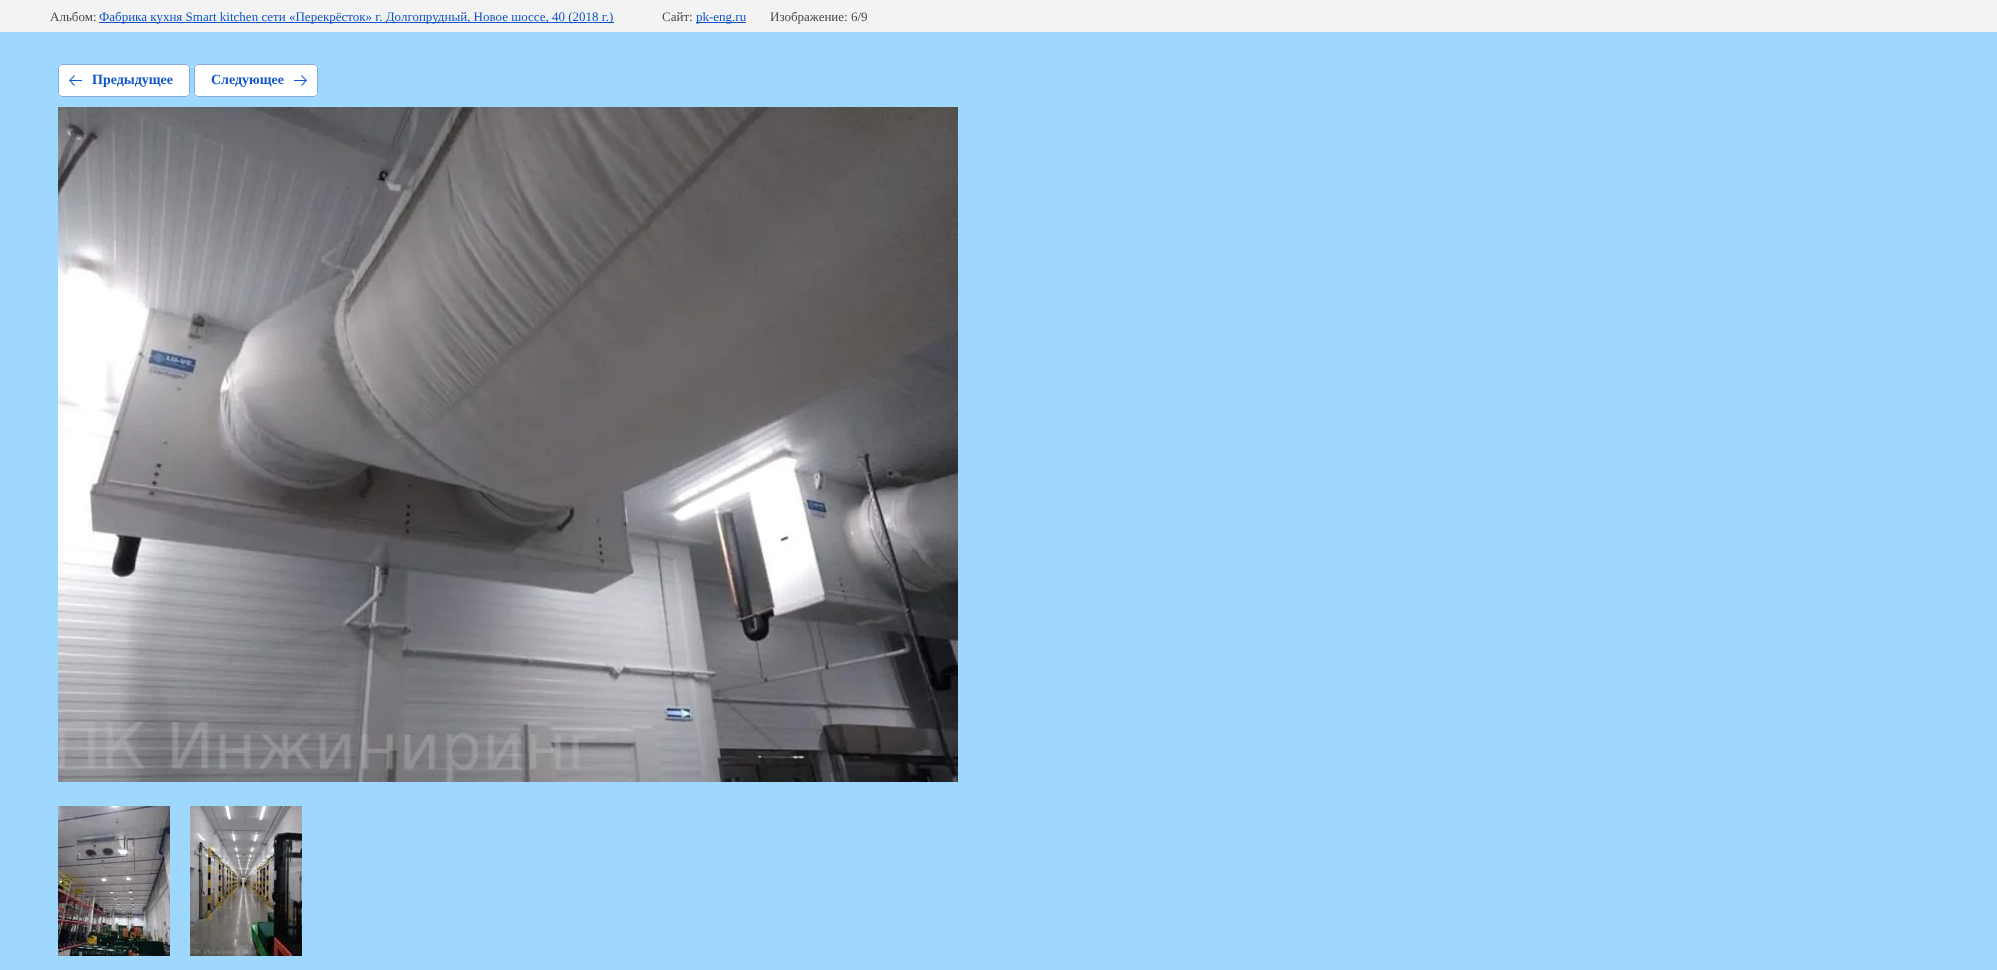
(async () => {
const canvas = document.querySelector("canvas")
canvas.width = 1997
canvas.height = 970
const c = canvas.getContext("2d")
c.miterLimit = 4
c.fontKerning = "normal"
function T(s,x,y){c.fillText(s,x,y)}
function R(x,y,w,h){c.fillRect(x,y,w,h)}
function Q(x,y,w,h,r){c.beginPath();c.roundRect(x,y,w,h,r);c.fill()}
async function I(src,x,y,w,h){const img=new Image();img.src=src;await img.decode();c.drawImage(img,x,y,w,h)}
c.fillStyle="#9fd8ff"
R(0,0,1997,970)
c.fillStyle="#f3f3f3"
R(0,0,1997,32)
c.font="13px Liberation Serif"
c.fillStyle="#484848"
T("Альбом:",50,21)
c.fillStyle="#15c"
R(99,22,515,1)
T("Фабрика кухня Smart kitchen сети «Перекрёсток» г. Долгопрудный, Новое шоссе, 40 (2018 г.)",99,21)
c.fillStyle="#484848"
T("Сайт:",662,21)
c.fillStyle="#15c"
R(696,22,50,1)
T("pk-eng.ru",696,21)
c.fillStyle="#484848"
T("Изображение: 6/9",770,21)
c.fillStyle="#fff"
Q(58,64,132,33,4)
c.beginPath()
c.roundRect(58.5,64.5,131,32,3.5)
c.strokeStyle="#1155cc80"
c.stroke()
await I("1.png",69,75,13,11)
c.font="bold 14px Liberation Serif"
c.fillStyle="#15c"
T("Предыдущее",92,84)
c.fillStyle="#fff"
Q(194,64,124,33,4)
c.beginPath()
c.roundRect(194.5,64.5,123,32,3.5)
c.stroke()
c.fillStyle="#15c"
T("Следующее",211,84)
await I("2.png",294,75,13,11)
await I("3.png",58,107,900,675)
await I("4.png",58,806,112,150)
await I("5.png",190,806,112,150)
})()
